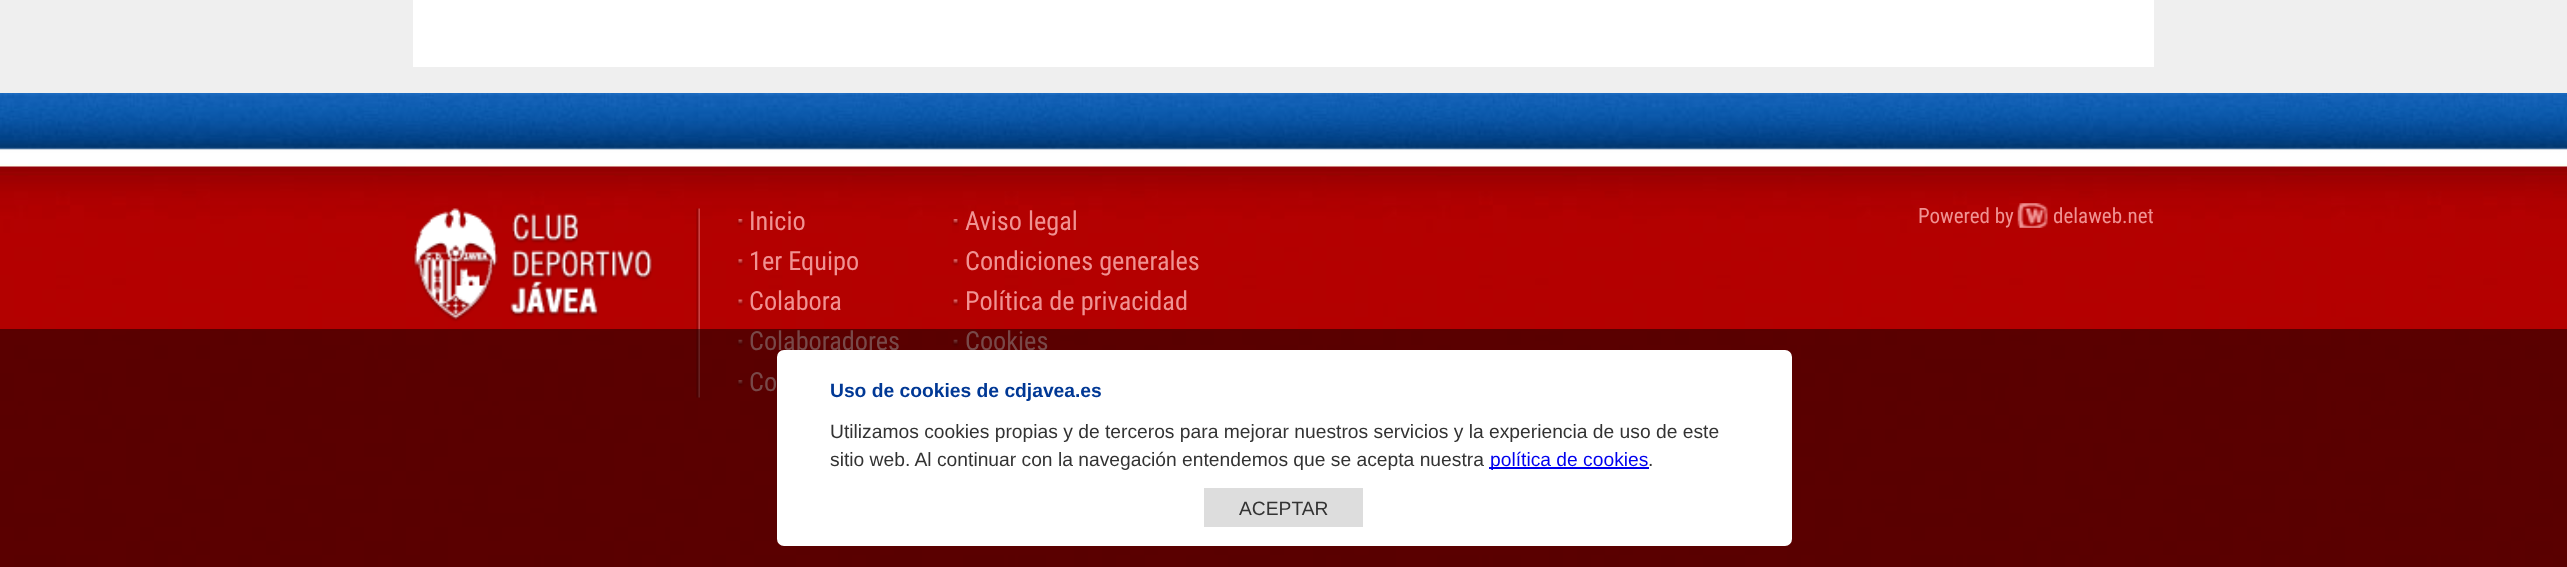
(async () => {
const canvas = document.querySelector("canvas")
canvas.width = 2567
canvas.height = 567
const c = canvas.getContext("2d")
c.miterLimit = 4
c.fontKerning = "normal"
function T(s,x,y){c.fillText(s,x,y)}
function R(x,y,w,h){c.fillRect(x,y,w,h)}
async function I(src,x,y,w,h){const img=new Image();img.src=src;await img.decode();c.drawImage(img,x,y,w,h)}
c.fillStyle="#efefef"
R(0,0,2567,567)
c.fillStyle="#fff"
R(413,0,1741,67)
await I("1.png",0,93,2567,474)
await I("2.png",413,208,287,190)
await I("3.png",737,219,7,7)
c.font="26.25px Roboto Condensed"
c.fillStyle="#f09292"
T("Inicio",749,230)
await I("4.png",737,259,7,7)
T("1er Equipo",749,270)
await I("5.png",737,299,7,7)
T("Colabora",749,310)
await I("6.png",737,339,7,8)
T("Colaboradores",749,350)
await I("7.png",737,380,7,7)
T("Co",749,391)
await I("8.png",952,219,7,7)
T("Aviso legal",965,230)
await I("9.png",952,259,7,7)
T("Condiciones generales",965,270)
await I("10.png",952,299,7,7)
T("Política de privacidad",965,310)
await I("11.png",952,339,7,8)
T("Cookies",965,350)
c.font="21px Roboto Condensed"
T("Powered by",1918,223)
await I("12.png",2017,203,31,25)
T("delaweb.net",2053,223)
c.fillStyle="#00000080"
R(0,329,2567,238)
c.fillStyle="#fff"
c.beginPath()
c.roundRect(778,351,1013,194,6)
c.fill()
c.strokeStyle="#fff"
c.lineWidth=2
c.stroke()
c.font="bold 19.25px Liberation Sans"
c.fillStyle="#003895"
T("Uso de cookies de cdjavea.es",830,397)
c.font="19.25px Liberation Sans"
c.fillStyle="#333"
T("Utilizamos cookies propias y de terceros para mejorar nuestros servicios y la experiencia de uso de este",830,438)
T("sitio web. Al continuar con la navegación entendemos que se acepta nuestra",830,466)
c.fillStyle="#00e"
R(1489,467,160,2)
T("política de cookies",1490,466)
c.fillStyle="#333"
T(".",1648,466)
c.fillStyle="#ddd"
R(1204,488,159,39)
c.fillStyle="#333"
T("ACEPTAR",1239,515)
})()
